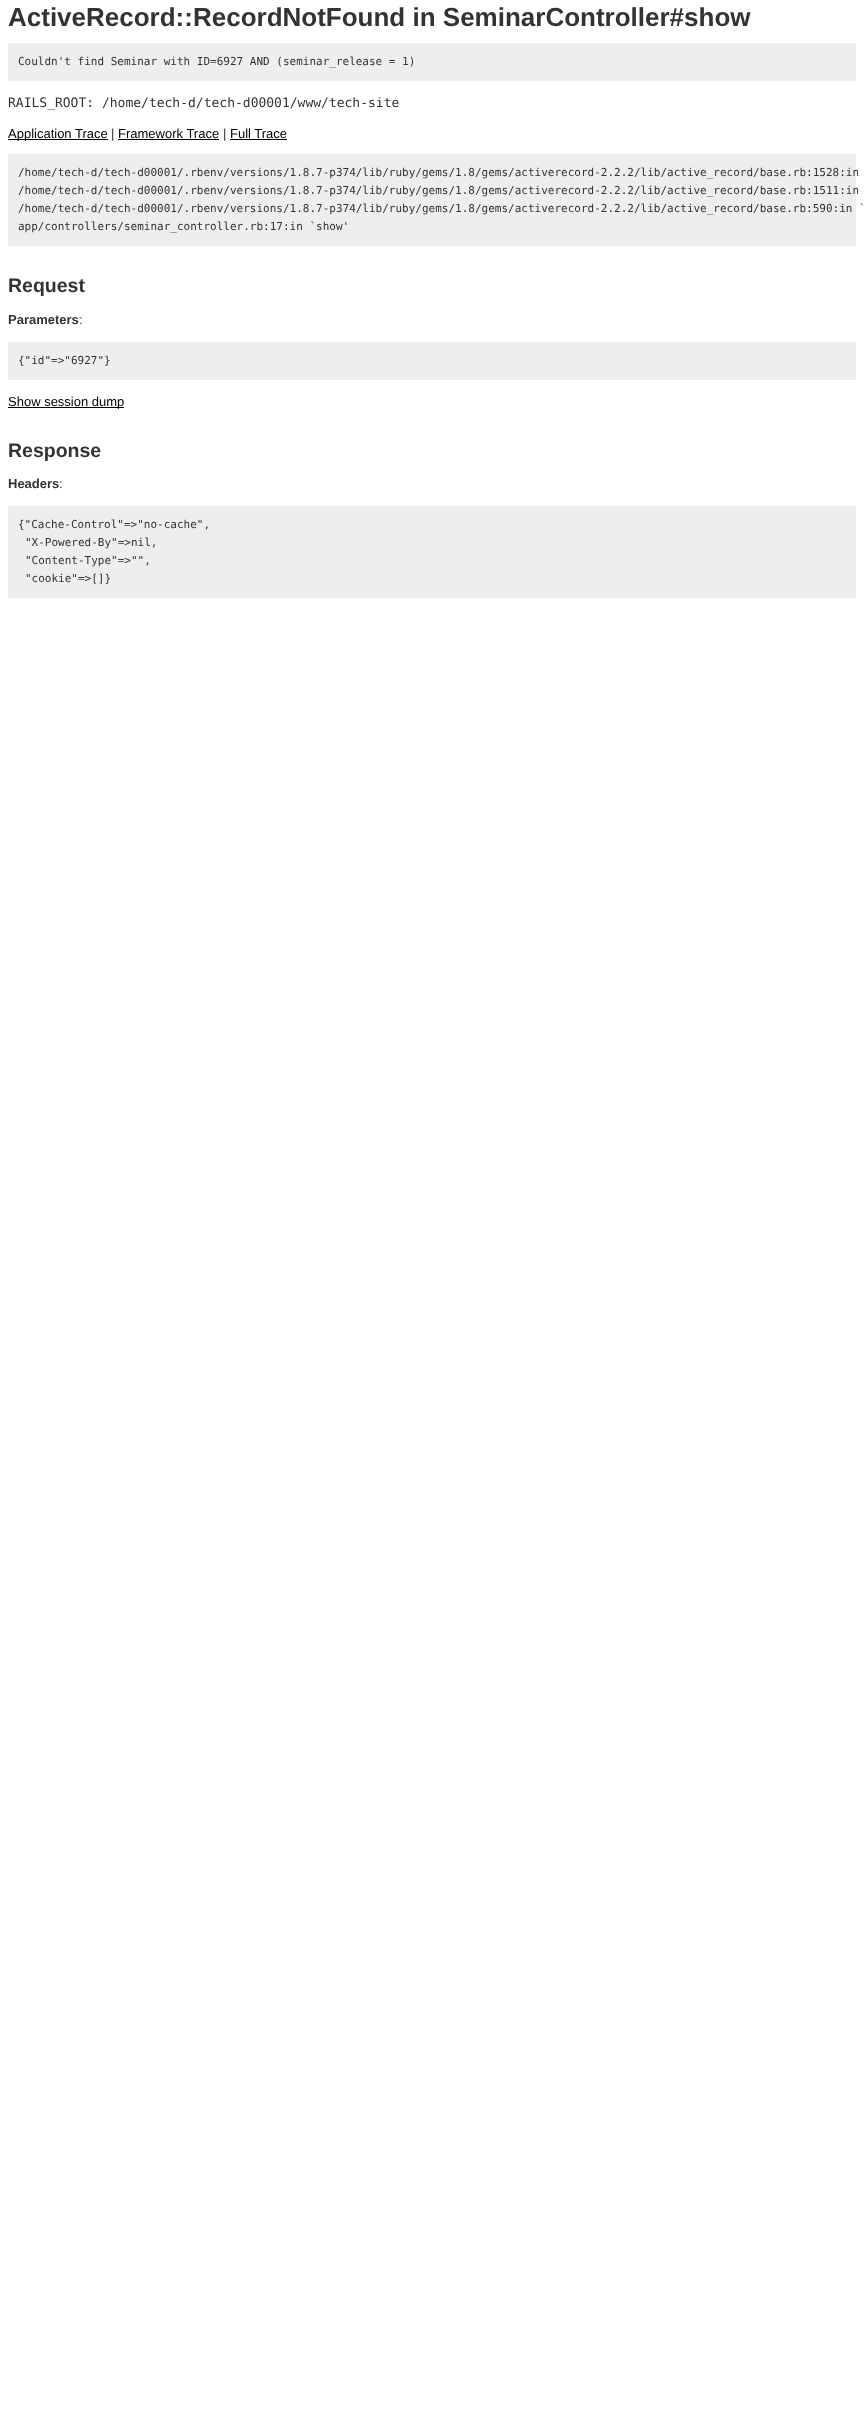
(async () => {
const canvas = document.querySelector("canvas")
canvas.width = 864
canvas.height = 2429
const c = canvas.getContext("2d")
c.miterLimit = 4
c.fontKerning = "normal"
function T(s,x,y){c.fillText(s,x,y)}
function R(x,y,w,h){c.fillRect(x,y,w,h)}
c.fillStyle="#fff"
R(0,0,864,2429)
c.font="bold 26px Liberation Sans"
c.fillStyle="#333"
T("ActiveRecord::RecordNotFound in SeminarController#show",8,26)
c.fillStyle="#eee"
R(8,43,848,38)
c.font="11px DejaVu Sans Mono"
c.fillStyle="#333"
T("Couldn't find Seminar with ID=6927 AND (seminar_release = 1)",18,65)
c.font="13px DejaVu Sans Mono"
T("RAILS_ROOT: /home/tech-d/tech-d00001/www/tech-site",8,107)
c.fillStyle="#000"
R(8,139,100,1)
c.font="13px Liberation Sans"
T("Application Trace",8,138)
c.fillStyle="#333"
T("|",111,138)
c.fillStyle="#000"
T("Framework Trace",118,138)
R(118,139,101,1)
c.fillStyle="#333"
T("|",223,138)
c.fillStyle="#000"
T("Full Trace",230,138)
R(230,139,57,1)
c.fillStyle="#eee"
R(8,154,848,92)
c.font="11px DejaVu Sans Mono"
c.fillStyle="#333"
T("/home/tech-d/tech-d00001/.rbenv/versions/1.8.7-p374/lib/ruby/gems/1.8/gems/activerecord-2.2.2/lib/active_record/base.rb:1528:in",18,176)
T("/home/tech-d/tech-d00001/.rbenv/versions/1.8.7-p374/lib/ruby/gems/1.8/gems/activerecord-2.2.2/lib/active_record/base.rb:1511:in",18,194)
T("/home/tech-d/tech-d00001/.rbenv/versions/1.8.7-p374/lib/ruby/gems/1.8/gems/activerecord-2.2.2/lib/active_record/base.rb:590:in `",18,212)
T("app/controllers/seminar_controller.rb:17:in `show'",18,230)
c.font="bold 19.5px Liberation Sans"
T("Request",8,292)
c.font="bold 13px Liberation Sans"
T("Parameters",8,324)
c.font="13px Liberation Sans"
T(":",79,324)
c.fillStyle="#eee"
R(8,342,848,38)
c.font="11px DejaVu Sans Mono"
c.fillStyle="#333"
T("{\"id\"=>\"6927\"}",18,364)
c.fillStyle="#000"
R(8,407,116,1)
c.font="13px Liberation Sans"
T("Show session dump",8,406)
c.font="bold 19.5px Liberation Sans"
c.fillStyle="#333"
T("Response",8,457)
c.font="bold 13px Liberation Sans"
T("Headers",8,488)
c.font="13px Liberation Sans"
T(":",59,488)
c.fillStyle="#eee"
R(8,506,848,92)
c.font="11px DejaVu Sans Mono"
c.fillStyle="#333"
T("{\"Cache-Control\"=>\"no-cache\",",18,528)
T("\"X-Powered-By\"=>nil,",25,546)
T("\"Content-Type\"=>\"\",",25,564)
T("\"cookie\"=>[]}",25,582)
})()
